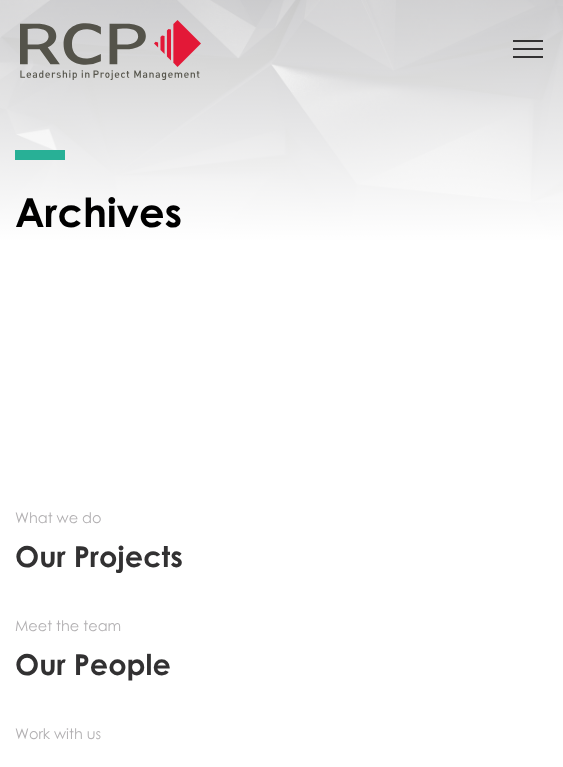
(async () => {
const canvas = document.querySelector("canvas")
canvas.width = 563
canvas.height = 767
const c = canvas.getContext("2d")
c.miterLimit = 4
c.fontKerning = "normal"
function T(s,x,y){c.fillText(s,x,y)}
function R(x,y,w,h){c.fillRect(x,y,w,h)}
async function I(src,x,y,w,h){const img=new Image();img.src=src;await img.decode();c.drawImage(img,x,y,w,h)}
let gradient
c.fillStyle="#fff"
R(0,0,563,767)
await I("2.png",0,0,563,240)
gradient = c.createLinearGradient(282,242,282,0)
gradient.addColorStop(0,"#fff")
gradient.addColorStop(1,"#ffffff4d")
c.fillStyle = gradient
R(0,0,563,240)
await I("1.png",20,20,181,60)
c.fillStyle="#323132"
R(513,40,30,2)
R(513,48,30,2)
R(513,56,30,2)
c.fillStyle="#28b096"
R(15,150,50,10)
c.font="40px 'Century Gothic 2'"
c.fillStyle="#000"
T("Archives",15,227)
c.font="14.5px Century Gothic"
c.fillStyle="#b2b0b2"
T("What we do",15,523)
c.font="28.75px 'Century Gothic 2'"
c.fillStyle="#323132"
T("Our Projects",15,567)
c.font="14.5px Century Gothic"
c.fillStyle="#b2b0b2"
T("Meet the team",15,631)
c.font="28.75px 'Century Gothic 2'"
c.fillStyle="#323132"
T("Our People",15,675)
c.font="14.5px Century Gothic"
c.fillStyle="#b2b0b2"
T("Work with us",15,739)
})()
